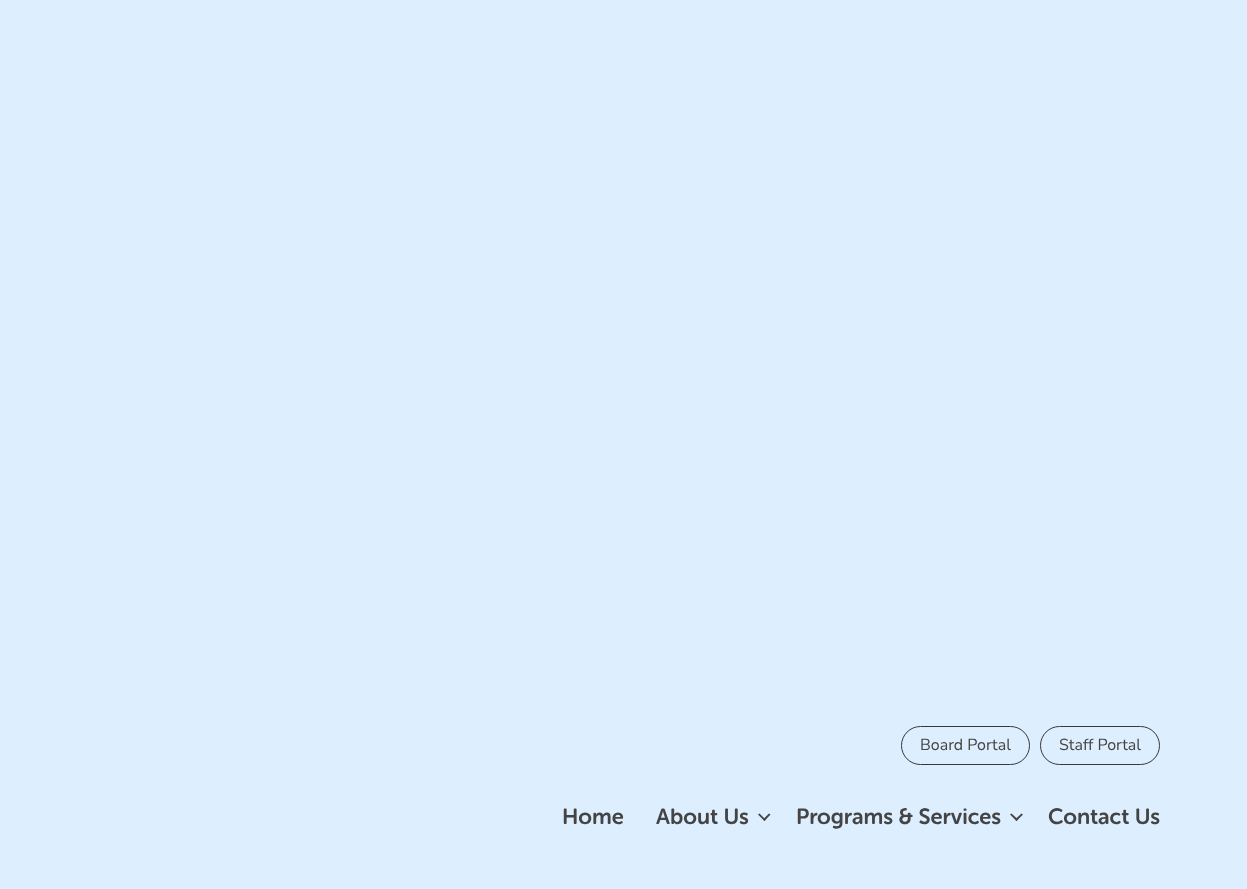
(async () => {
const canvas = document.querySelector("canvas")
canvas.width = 1247
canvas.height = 889
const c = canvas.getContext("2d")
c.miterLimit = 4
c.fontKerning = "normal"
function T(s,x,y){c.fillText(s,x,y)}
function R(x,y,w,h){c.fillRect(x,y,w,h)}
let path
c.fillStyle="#def"
R(0,0,1247,889)
c.beginPath()
c.roundRect(901.5,726.5,128,38,19)
c.strokeStyle="#383838"
c.stroke()
c.font="200 16px Nunito Sans"
c.fillStyle="#444"
T("Board Portal",920,750)
c.beginPath()
c.roundRect(1040.5,726.5,119,38,19)
c.stroke()
T("Staff Portal",1059,750)
c.font="600 22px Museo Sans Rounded"
T("Home",562,824)
T("About Us",656,824)
path = new Path2D("M769 813.5l1.5 1l-6 6.5l-1.5-1.5z")
c.fill(path)
path = new Path2D("M759.5 813.5l6 6l-1 1.5l-6.5-6.5z")
c.fill(path)
T("Programs & Services",796,824)
path = new Path2D("M1021.5 813.5l1.5 1l-6.5 6.5l-1.5-1.5z")
c.fill(path)
path = new Path2D("M1011.5 813.5l6.5 6l-1.5 1.5l-6.5-6.5z")
c.fill(path)
T("Contact Us",1048,824)
})()
